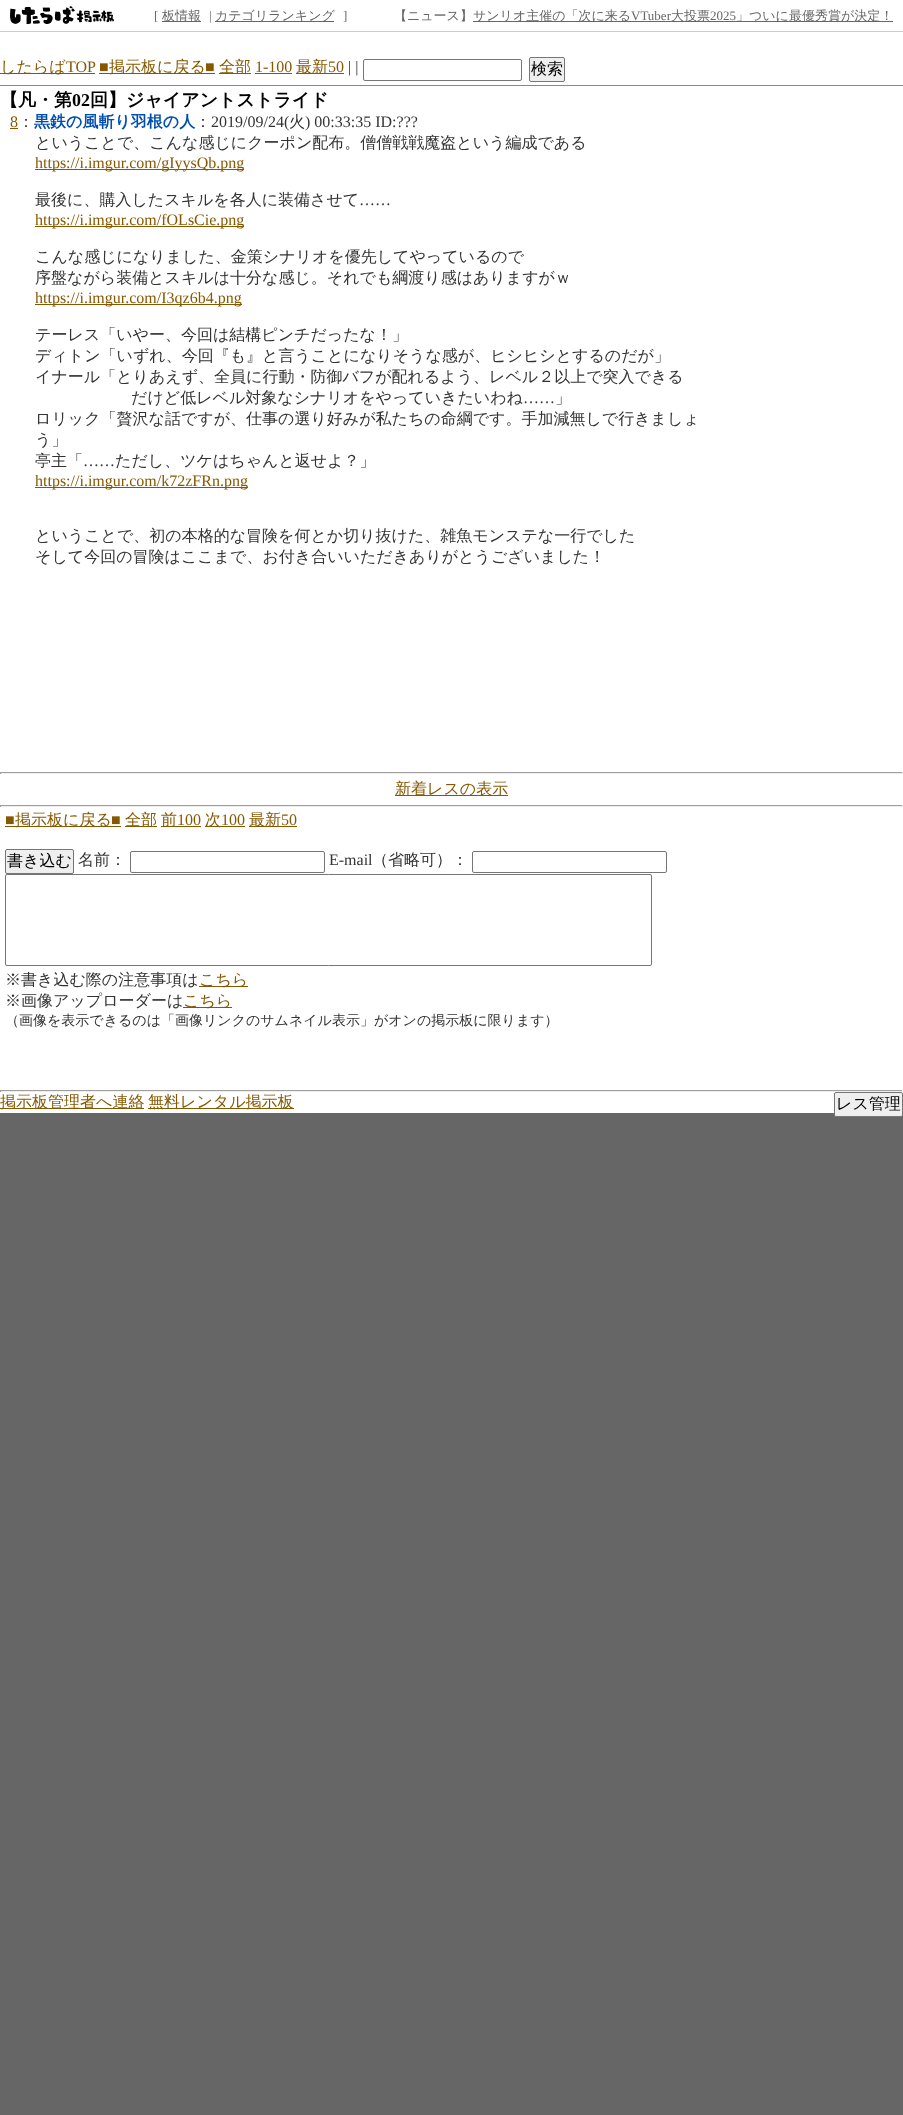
(async () => {
const canvas = document.querySelector("canvas")
canvas.width = 903
canvas.height = 2115
const c = canvas.getContext("2d")
c.miterLimit = 4
c.fontKerning = "normal"
function T(s,x,y){c.fillText(s,x,y)}
function R(x,y,w,h){c.fillRect(x,y,w,h)}
async function I(src,x,y,w,h){const img=new Image();img.src=src;await img.decode();c.drawImage(img,x,y,w,h)}
c.fillStyle="#666"
R(0,0,903,2115)
c.fillStyle="#fff"
R(0,32,903,1081)
R(0,0,903,31)
c.fillStyle="#ccc"
R(0,31,903,1)
await I("1.png",10,6,104,19)
c.font="13px Liberation Serif"
c.fillStyle="#666"
T("[",154,20)
R(162,21,39,1)
c.font="500 13px WenQuanYi Zen Hei"
T("板情報",162,20)
c.font="13px Liberation Serif"
T("|",209,20)
R(215,21,119,1)
c.font="500 13px WenQuanYi Zen Hei"
T("カテゴリランキング",215,20)
c.font="13px Liberation Serif"
T("]",343,20)
c.font="500 13px WenQuanYi Zen Hei"
T("【ニュース】",394,20)
R(473,21,420,1)
T("サンリオ主催の「次に来る",473,20)
c.font="13px Liberation Serif"
T("VTuber",631,20)
c.font="500 13px WenQuanYi Zen Hei"
T("大投票",671,20)
c.font="13px Liberation Serif"
T("2025",710,20)
c.font="500 13px WenQuanYi Zen Hei"
T("」ついに最優秀賞が決定！",736,20)
c.fillStyle="#888"
R(0,85,903,1)
c.fillStyle="#865801"
R(0,73,95,1)
c.font="500 16px WenQuanYi Zen Hei"
T("したらば",0,72)
c.font="16px Liberation Serif"
T("TOP",66,72)
T("■",99,72)
R(99,73,116,1)
c.font="500 16px WenQuanYi Zen Hei"
T("掲示板に戻る",109,72)
c.font="16px Liberation Serif"
T("■",205,72)
R(219,73,32,1)
c.font="500 16px WenQuanYi Zen Hei"
T("全部",219,72)
c.font="16px Liberation Serif"
T("1-100",255,72)
R(255,73,37,1)
R(296,73,48,1)
c.font="500 16px WenQuanYi Zen Hei"
T("最新",296,72)
c.font="16px Liberation Serif"
T("50",328,72)
c.fillStyle="#333"
T("| |",348,72)
c.beginPath()
c.roundRect(363.5,59.5,158,21,1.5)
c.strokeStyle="#767676"
c.stroke()
c.fillStyle="#efefef"
c.beginPath()
c.roundRect(529.5,57.5,35,24,1.5)
c.fill()
c.stroke()
c.font="500 16px WenQuanYi Zen Hei"
c.fillStyle="#000"
T("検索",531,74)
c.font="bold 18px WenQuanYi Zen Hei"
T("【凡・第",0,106)
c.font="bold 18px Liberation Serif"
T("02",72,106)
c.font="bold 18px WenQuanYi Zen Hei"
T("回】ジャイアントストライド",90,106)
c.font="16px Liberation Serif"
c.fillStyle="#865801"
T("8",10,127)
R(10,128,8,1)
c.font="500 16px WenQuanYi Zen Hei"
c.fillStyle="#333"
T("：",18,127)
c.font="bold 16px WenQuanYi Zen Hei"
c.fillStyle="#004fb0"
T("黒鉄の風斬り羽根の人",34,127)
c.font="500 16px WenQuanYi Zen Hei"
c.fillStyle="#333"
T("：",195,127)
c.font="16px Liberation Serif"
T("2019/09/24(",211,127)
c.font="500 16px WenQuanYi Zen Hei"
T("火",289,127)
c.font="16px Liberation Serif"
T(") 00:33:35 ID:???",305,127)
c.font="500 16px WenQuanYi Zen Hei"
T("ということで、こんな感じにクーポン配布。僧僧戦戦魔盗という編成である",35,148)
c.fillStyle="#865801"
R(35,169,209,1)
c.font="16px Liberation Serif"
T("https://i.imgur.com/gIyysQb.png",35,168)
c.font="500 16px WenQuanYi Zen Hei"
c.fillStyle="#333"
T("最後に、購入したスキルを各人に装備させて",35,205)
c.font="16px Liberation Serif"
T("……",359,205)
c.fillStyle="#865801"
R(35,226,209,1)
T("https://i.imgur.com/fOLsCie.png",35,225)
c.font="500 16px WenQuanYi Zen Hei"
c.fillStyle="#333"
T("こんな感じになりました、金策シナリオを優先してやっているので",35,262)
T("序盤ながら装備とスキルは十分な感じ。それでも綱渡り感はありますがｗ",35,283)
c.fillStyle="#865801"
R(35,304,207,1)
c.font="16px Liberation Serif"
T("https://i.imgur.com/I3qz6b4.png",35,303)
c.font="500 16px WenQuanYi Zen Hei"
c.fillStyle="#333"
T("テーレス「いやー、今回は結構ピンチだったな！」",35,340)
T("ディトン「いずれ、今回『も』と言うことになりそうな感が、ヒシヒシとするのだが」",35,361)
T("イナール「とりあえず、全員に行動・防御バフが配れるよう、レベル２以上で突入できる",35,382)
T("だけど低レベル対象なシナリオをやっていきたいわね",131,403)
c.font="16px Liberation Serif"
T("……",523,403)
c.font="500 16px WenQuanYi Zen Hei"
T("」",555,403)
T("ロリック「贅沢な話ですが、仕事の選り好みが私たちの命綱です。手加減無しで行きましょ",35,424)
T("う」",35,445)
T("亭主「",35,466)
c.font="16px Liberation Serif"
T("……",83,466)
c.font="500 16px WenQuanYi Zen Hei"
T("ただし、ツケはちゃんと返せよ？」",115,466)
c.fillStyle="#865801"
R(35,487,213,1)
c.font="16px Liberation Serif"
T("https://i.imgur.com/k72zFRn.png",35,486)
c.font="500 16px WenQuanYi Zen Hei"
c.fillStyle="#333"
T("ということで、初の本格的な冒険を何とか切り抜けた、雑魚モンステな一行でした",35,541)
T("そして今回の冒険はここまで、お付き合いいただきありがとうございました！",35,562)
c.fillStyle="#9f9f9f"
R(0,772,903,1)
c.fillStyle="#eee"
R(902,772,1,2)
R(0,773,903,1)
c.fillStyle="#9f9f9f"
R(0,772,1,2)
c.fillStyle="#865801"
R(395,795,113,1)
T("新着レスの表示",395,794)
c.fillStyle="#9f9f9f"
R(0,805,903,1)
c.fillStyle="#eee"
R(902,805,1,2)
R(0,806,903,1)
c.fillStyle="#9f9f9f"
R(0,805,1,2)
c.font="16px Liberation Serif"
c.fillStyle="#865801"
T("■",5,825)
R(5,826,116,1)
c.font="500 16px WenQuanYi Zen Hei"
T("掲示板に戻る",15,825)
c.font="16px Liberation Serif"
T("■",111,825)
R(125,826,32,1)
c.font="500 16px WenQuanYi Zen Hei"
T("全部",125,825)
R(161,826,40,1)
T("前",161,825)
c.font="16px Liberation Serif"
T("100",177,825)
R(205,826,40,1)
c.font="500 16px WenQuanYi Zen Hei"
T("次",205,825)
c.font="16px Liberation Serif"
T("100",221,825)
R(249,826,48,1)
c.font="500 16px WenQuanYi Zen Hei"
T("最新",249,825)
c.font="16px Liberation Serif"
T("50",281,825)
c.fillStyle="#efefef"
c.beginPath()
c.roundRect(5.5,849.5,68,24,1.5)
c.fill()
c.stroke()
c.font="500 16px WenQuanYi Zen Hei"
c.fillStyle="#000"
T("書き込む",7,866)
c.fillStyle="#333"
T("名前：",78,865)
c.beginPath()
c.roundRect(130.5,851.5,194,21,1.5)
c.stroke()
c.font="16px Liberation Serif"
T("E-mail",329,865)
c.font="500 16px WenQuanYi Zen Hei"
T("（省略可）：",372,865)
c.beginPath()
c.roundRect(472.5,851.5,194,21,1.5)
c.stroke()
c.beginPath()
c.roundRect(5.5,874.5,646,91,1.5)
c.stroke()
T("※書き込む際の注意事項は",5,985)
c.fillStyle="#865801"
R(199,986,49,1)
T("こちら",199,985)
c.fillStyle="#333"
T("※画像アップローダーは",5,1006)
c.fillStyle="#865801"
R(183,1007,49,1)
T("こちら",183,1006)
c.font="500 14px WenQuanYi Zen Hei"
c.fillStyle="#333"
T("（画像を表示できるのは「画像リンクのサムネイル表示」がオンの掲示板に限ります）",5,1025)
c.fillStyle="#9f9f9f"
R(0,1090,903,1)
c.fillStyle="#eee"
R(902,1090,1,2)
R(0,1091,903,1)
c.fillStyle="#9f9f9f"
R(0,1090,1,2)
c.fillStyle="#865801"
R(0,1108,144,1)
c.font="500 16px WenQuanYi Zen Hei"
T("掲示板管理者へ連絡",0,1107)
R(148,1108,146,1)
T("無料レンタル掲示板",148,1107)
c.fillStyle="#efefef"
c.beginPath()
c.roundRect(834.5,1092.5,68,24,1.5)
c.fill()
c.stroke()
c.fillStyle="#000"
T("レス管理",836,1109)
})()
